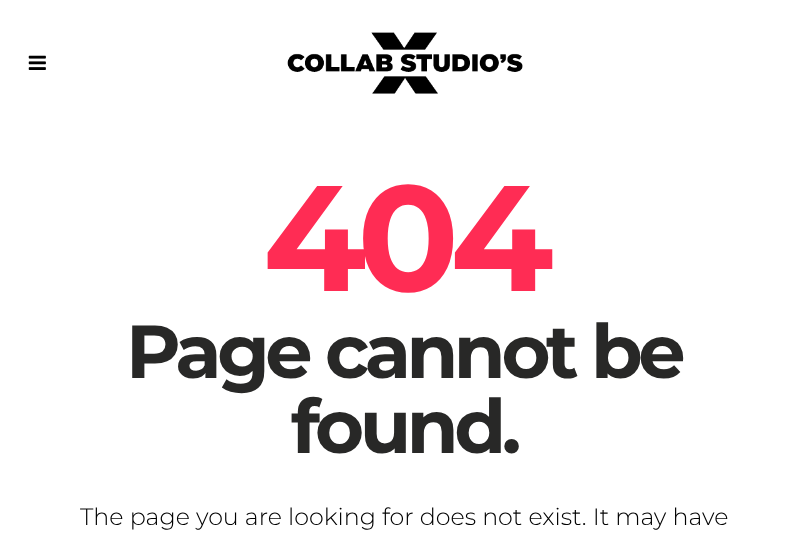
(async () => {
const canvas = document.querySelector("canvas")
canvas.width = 807
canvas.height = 539
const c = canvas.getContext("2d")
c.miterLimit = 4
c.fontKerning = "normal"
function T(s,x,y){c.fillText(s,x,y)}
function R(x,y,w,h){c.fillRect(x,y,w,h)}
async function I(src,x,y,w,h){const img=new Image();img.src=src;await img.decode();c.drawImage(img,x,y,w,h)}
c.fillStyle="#fff"
R(0,0,807,539)
await I("1.png",28,55,18,15)
await I("2.png",287,32,236,62)
c.letterSpacing="-9px"
c.font="bold 150px Montserrat"
c.fillStyle="#ff2c54"
T("404",263,291)
c.letterSpacing="-4.5px"
c.font="bold 75px Montserrat"
c.fillStyle="#282827"
T("Page cannot be",126,378)
T("found.",291,453)
c.letterSpacing="0px"
c.font="300 23.75px Montserrat"
c.fillStyle="#000"
T("The page you are looking for does not exist. It may have",80,525)
})()
